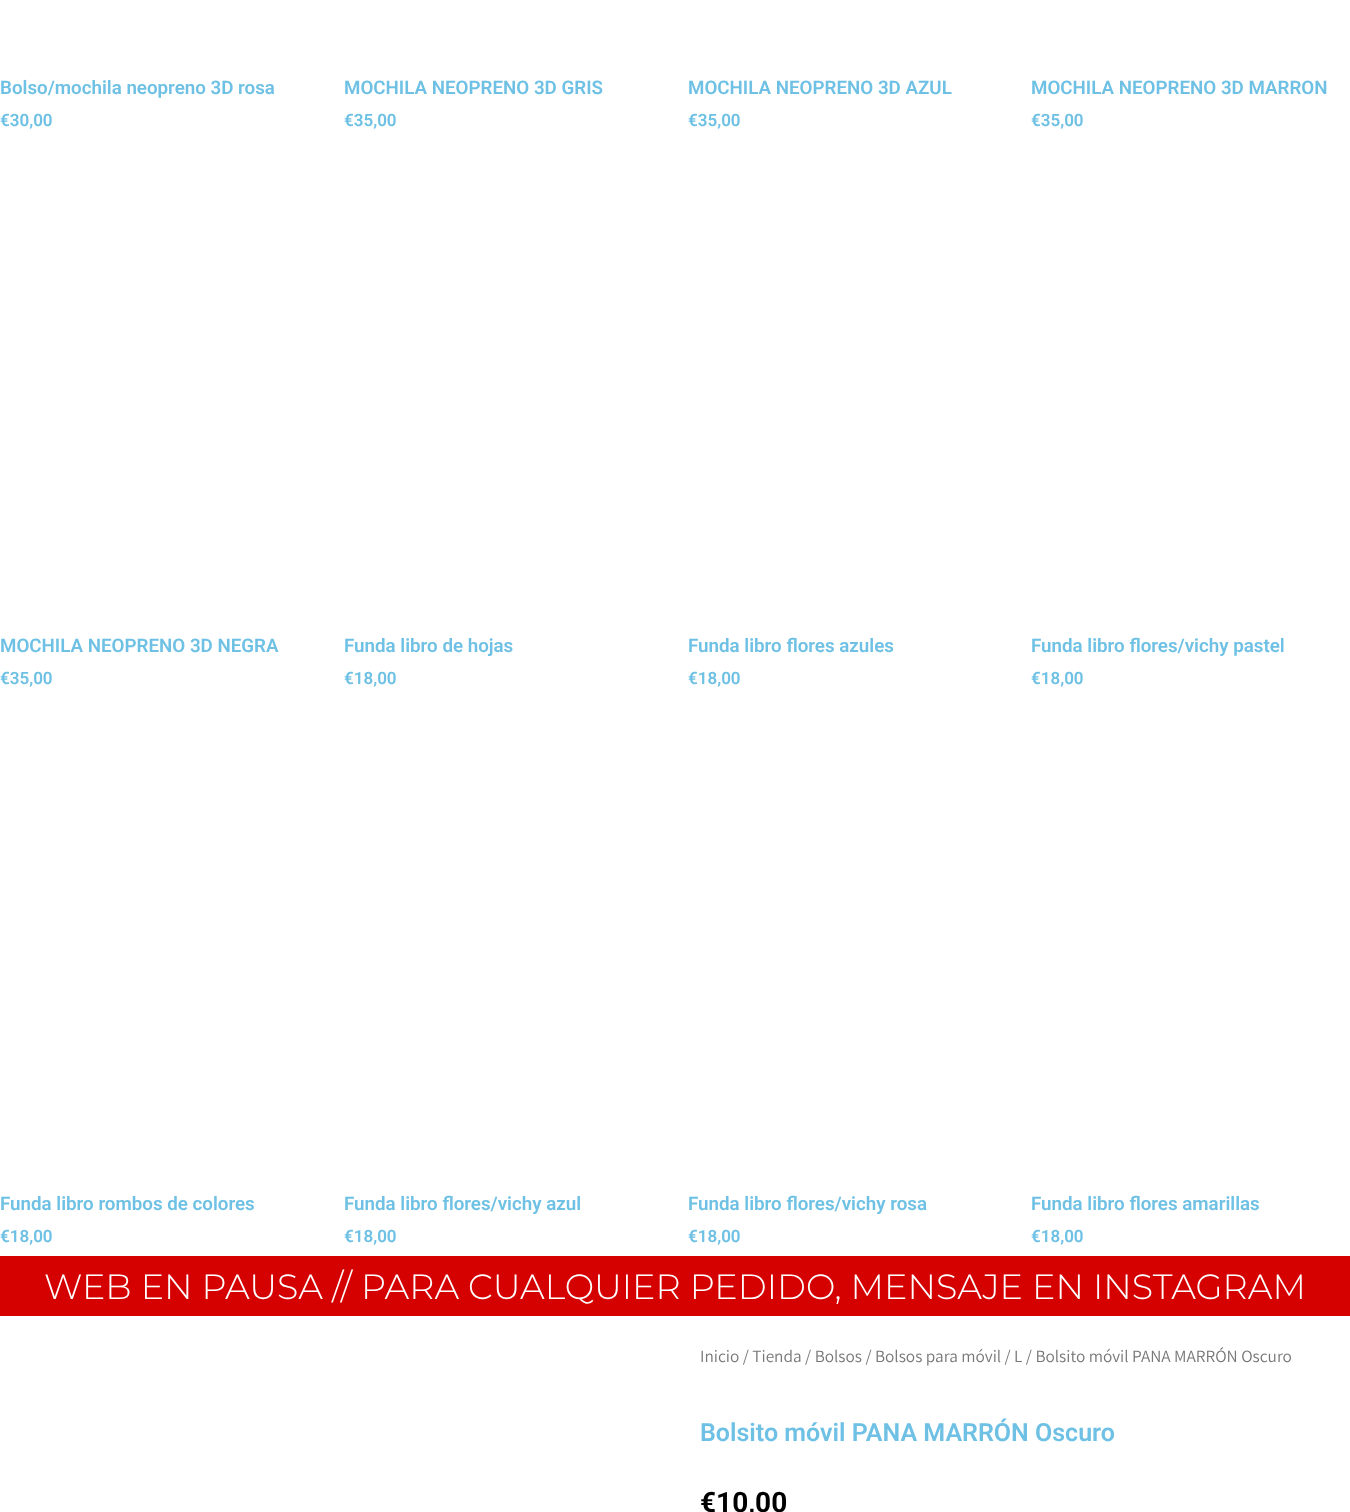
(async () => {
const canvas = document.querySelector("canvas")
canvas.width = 1350
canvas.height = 1512
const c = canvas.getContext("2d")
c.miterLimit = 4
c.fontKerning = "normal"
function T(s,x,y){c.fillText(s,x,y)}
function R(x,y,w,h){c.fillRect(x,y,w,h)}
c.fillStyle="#fff"
R(0,0,1350,1512)
c.font="600 18.75px Roboto"
c.fillStyle="#6ec1e4"
T("Bolso/mochila neopreno 3D rosa",0,94)
c.font="600 17px Roboto"
T("€30,00",0,126)
c.font="600 18.75px Roboto"
T("MOCHILA NEOPRENO 3D GRIS",344,94)
c.font="600 17px Roboto"
T("€35,00",344,126)
c.font="600 18.75px Roboto"
T("MOCHILA NEOPRENO 3D AZUL",688,94)
c.font="600 17px Roboto"
T("€35,00",688,126)
c.font="600 18.75px Roboto"
T("MOCHILA NEOPRENO 3D MARRON",1031,94)
c.font="600 17px Roboto"
T("€35,00",1031,126)
c.font="600 18.75px Roboto"
T("MOCHILA NEOPRENO 3D NEGRA",0,652)
c.font="600 17px Roboto"
T("€35,00",0,684)
c.font="600 18.75px Roboto"
T("Funda libro de hojas",344,652)
c.font="600 17px Roboto"
T("€18,00",344,684)
c.font="600 18.75px Roboto"
T("Funda libro flores azules",688,652)
c.font="600 17px Roboto"
T("€18,00",688,684)
c.font="600 18.75px Roboto"
T("Funda libro flores/vichy pastel",1031,652)
c.font="600 17px Roboto"
T("€18,00",1031,684)
c.font="600 18.75px Roboto"
T("Funda libro rombos de colores",0,1210)
c.font="600 17px Roboto"
T("€18,00",0,1242)
c.font="600 18.75px Roboto"
T("Funda libro flores/vichy azul",344,1210)
c.font="600 17px Roboto"
T("€18,00",344,1242)
c.font="600 18.75px Roboto"
T("Funda libro flores/vichy rosa",688,1210)
c.font="600 17px Roboto"
T("€18,00",688,1242)
c.font="600 18.75px Roboto"
T("Funda libro flores amarillas",1031,1210)
c.font="600 17px Roboto"
T("€18,00",1031,1242)
c.fillStyle="#d50000"
R(0,1256,1350,60)
c.font="300 35px Montserrat"
c.fillStyle="#fff"
T("WEB EN PAUSA // PARA CUALQUIER PEDIDO, MENSAJE EN INSTAGRAM",44,1299)
c.font="17.25px Assistant"
c.fillStyle="#777"
T("Inicio / Tienda / Bolsos / Bolsos para móvil / L / Bolsito móvil PANA MARRÓN Oscuro",700,1362)
c.font="600 25px Roboto"
c.fillStyle="#6ec1e4"
T("Bolsito móvil PANA MARRÓN Oscuro",700,1441)
c.font="bold 28px Roboto"
c.fillStyle="#000"
T("€10,00",700,1512)
})()
